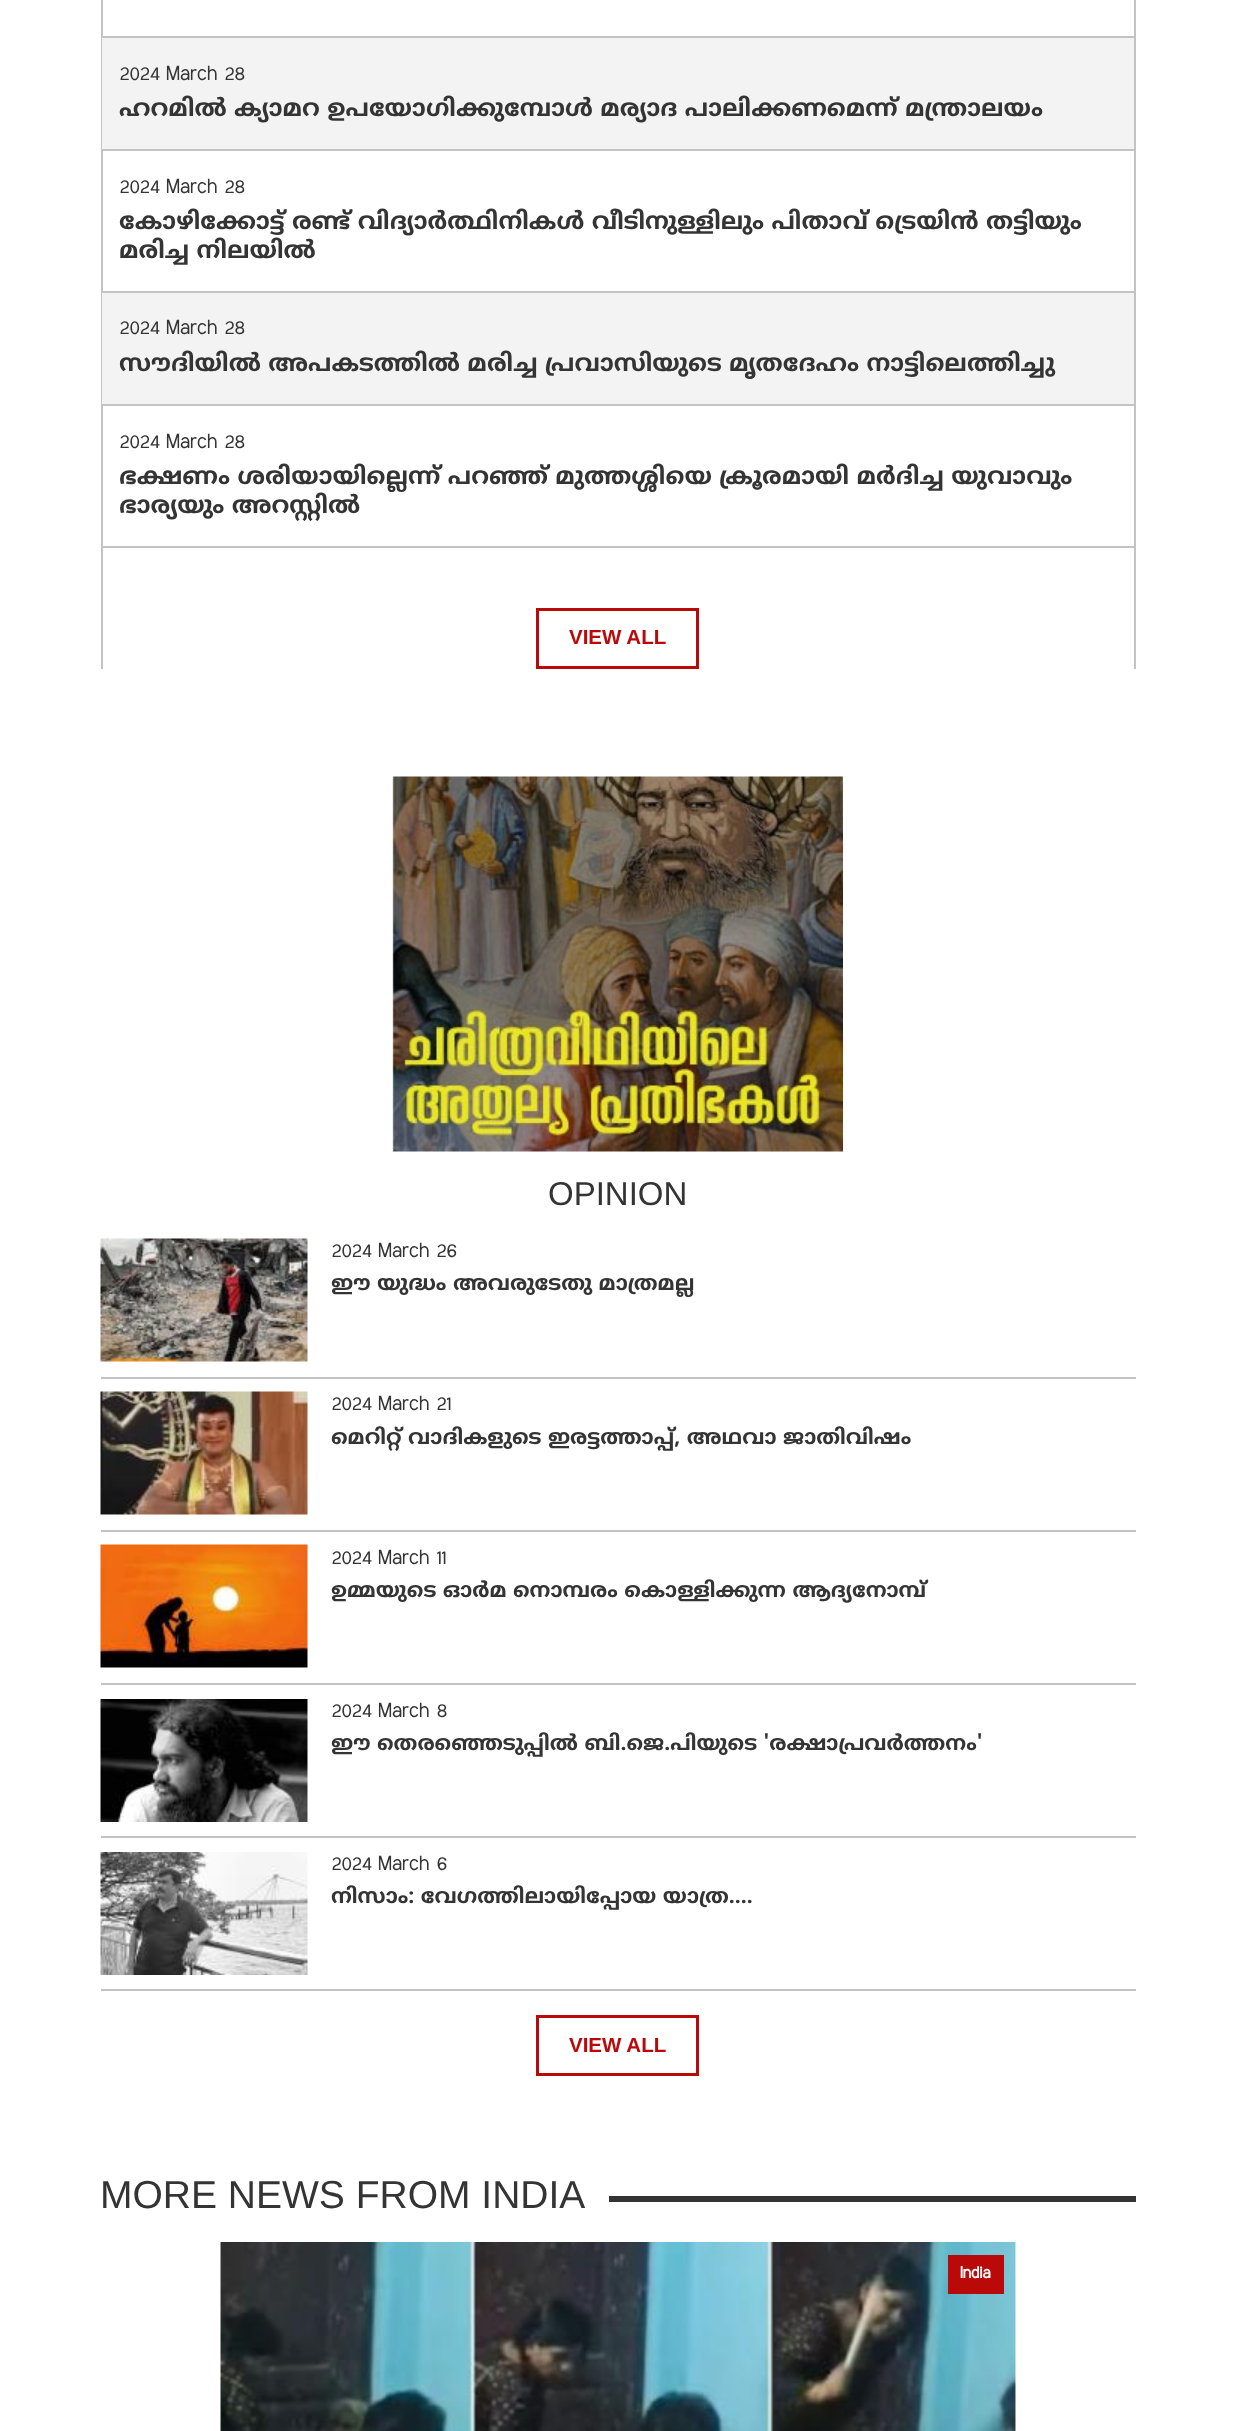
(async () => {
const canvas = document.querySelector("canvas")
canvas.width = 1234
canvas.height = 2431
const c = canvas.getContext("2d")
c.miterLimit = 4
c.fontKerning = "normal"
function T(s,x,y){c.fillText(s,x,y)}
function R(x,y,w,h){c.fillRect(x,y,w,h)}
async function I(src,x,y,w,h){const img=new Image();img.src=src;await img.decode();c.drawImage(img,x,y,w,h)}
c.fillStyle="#fff"
R(0,0,1234,2431)
c.fillStyle="#c3c3c3"
R(1134,0,2,669)
R(101,0,2,669)
R(102,36,1032,2)
c.fillStyle="#f3f3f3"
R(102,38,1032,111)
c.fillStyle="#c3c3c3"
R(102,149,1032,2)
c.font="24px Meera"
c.fillStyle="#343434"
T("2024 March 28",119,80)
c.font="bold 24px Noto Sans Malayalam"
T("ഹറമില്‍ ക്യാമറ ഉപയോഗിക്കുമ്പോള്‍ മര്യാദ പാലിക്കണമെന്ന് മന്ത്രാലയം",119,116)
c.fillStyle="#c3c3c3"
R(102,291,1032,2)
c.font="24px Meera"
c.fillStyle="#343434"
T("2024 March 28",119,193)
c.font="bold 24px Noto Sans Malayalam"
T("കോഴിക്കോട്ട് രണ്ട് വിദ്യാർത്ഥിനികൾ വീടിനുള്ളിലും പിതാവ് ട്രെയിൻ തട്ടിയും",119,229)
T("മരിച്ച നിലയിൽ",119,258)
c.fillStyle="#f3f3f3"
R(102,293,1032,111)
c.fillStyle="#c3c3c3"
R(102,404,1032,2)
c.font="24px Meera"
c.fillStyle="#343434"
T("2024 March 28",119,334)
c.font="bold 24px Noto Sans Malayalam"
T("സൗദിയില്‍ അപകടത്തില്‍ മരിച്ച പ്രവാസിയുടെ മൃതദേഹം നാട്ടിലെത്തിച്ചു",119,371)
c.fillStyle="#c3c3c3"
R(102,546,1032,2)
c.font="24px Meera"
c.fillStyle="#343434"
T("2024 March 28",119,448)
c.font="bold 24px Noto Sans Malayalam"
T("ഭക്ഷണം ശരിയായില്ലെന്ന് പറഞ്ഞ് മുത്തശ്ശിയെ ക്രൂരമായി മര്‍ദിച്ച യുവാവും",119,484)
T("ഭാര്യയും അറസ്റ്റില്‍",119,513)
c.strokeStyle="#ba0909"
c.lineWidth=3
c.strokeRect(537.5,609.5,160,58)
c.font="bold 20.5px Liberation Sans"
c.fillStyle="#ba0909"
T("VIEW ALL",569,644)
await I("1.png",392,776,451,376)
c.font="33px Liberation Sans"
c.fillStyle="#343434"
T("OPINION",548,1205)
c.fillStyle="#c3c3c3"
R(101,1377,1035,2)
await I("2.png",100,1238,208,124)
c.font="24px Meera"
c.fillStyle="#343434"
T("2024 March 26",331,1257)
c.font="bold 21px Noto Sans Malayalam"
T("ഈ യുദ്ധം അവരുടേതു മാത്രമല്ല",331,1290)
c.fillStyle="#c3c3c3"
R(101,1530,1035,2)
await I("3.png",100,1391,208,124)
c.font="24px Meera"
c.fillStyle="#343434"
T("2024 March 21",331,1410)
c.font="bold 21px Noto Sans Malayalam"
T("മെറിറ്റ് വാദികളുടെ ഇരട്ടത്താപ്പ്, അഥവാ ജാതിവിഷം",331,1444)
c.fillStyle="#c3c3c3"
R(101,1683,1035,2)
await I("4.png",100,1544,208,124)
c.font="24px Meera"
c.fillStyle="#343434"
T("2024 March 11",331,1564)
c.font="bold 21px Noto Sans Malayalam"
T("ഉമ്മയുടെ ഓർമ നൊമ്പരം കൊള്ളിക്കുന്ന ആദ്യനോമ്പ്",331,1597)
c.fillStyle="#c3c3c3"
R(101,1836,1035,2)
await I("5.png",100,1699,208,123)
c.font="24px Meera"
c.fillStyle="#343434"
T("2024 March 8",331,1717)
c.font="bold 21px Noto Sans Malayalam"
T("ഈ തെരഞ്ഞെടുപ്പില്‍ ബി.ജെ.പിയുടെ 'രക്ഷാപ്രവര്‍ത്തനം'",331,1750)
c.fillStyle="#c3c3c3"
R(101,1989,1035,2)
await I("6.png",100,1852,208,123)
c.font="24px Meera"
c.fillStyle="#343434"
T("2024 March 6",331,1870)
c.font="bold 21px Noto Sans Malayalam"
T("നിസാം: വേഗത്തിലായിപ്പോയ യാത്ര....",331,1903)
c.strokeRect(537.5,2016.5,160,58)
c.font="bold 20.5px Liberation Sans"
c.fillStyle="#ba0909"
T("VIEW ALL",569,2052)
c.font="39px Liberation Sans"
c.fillStyle="#343434"
T("MORE NEWS FROM INDIA",100,2208)
R(609,2196,527,6)
await I("7.png",220,2242,796,189)
c.fillStyle="#ba0909"
R(948,2255,56,39)
c.font="bold 19px Meera"
c.fillStyle="#fff"
T("India",960,2278)
})()
